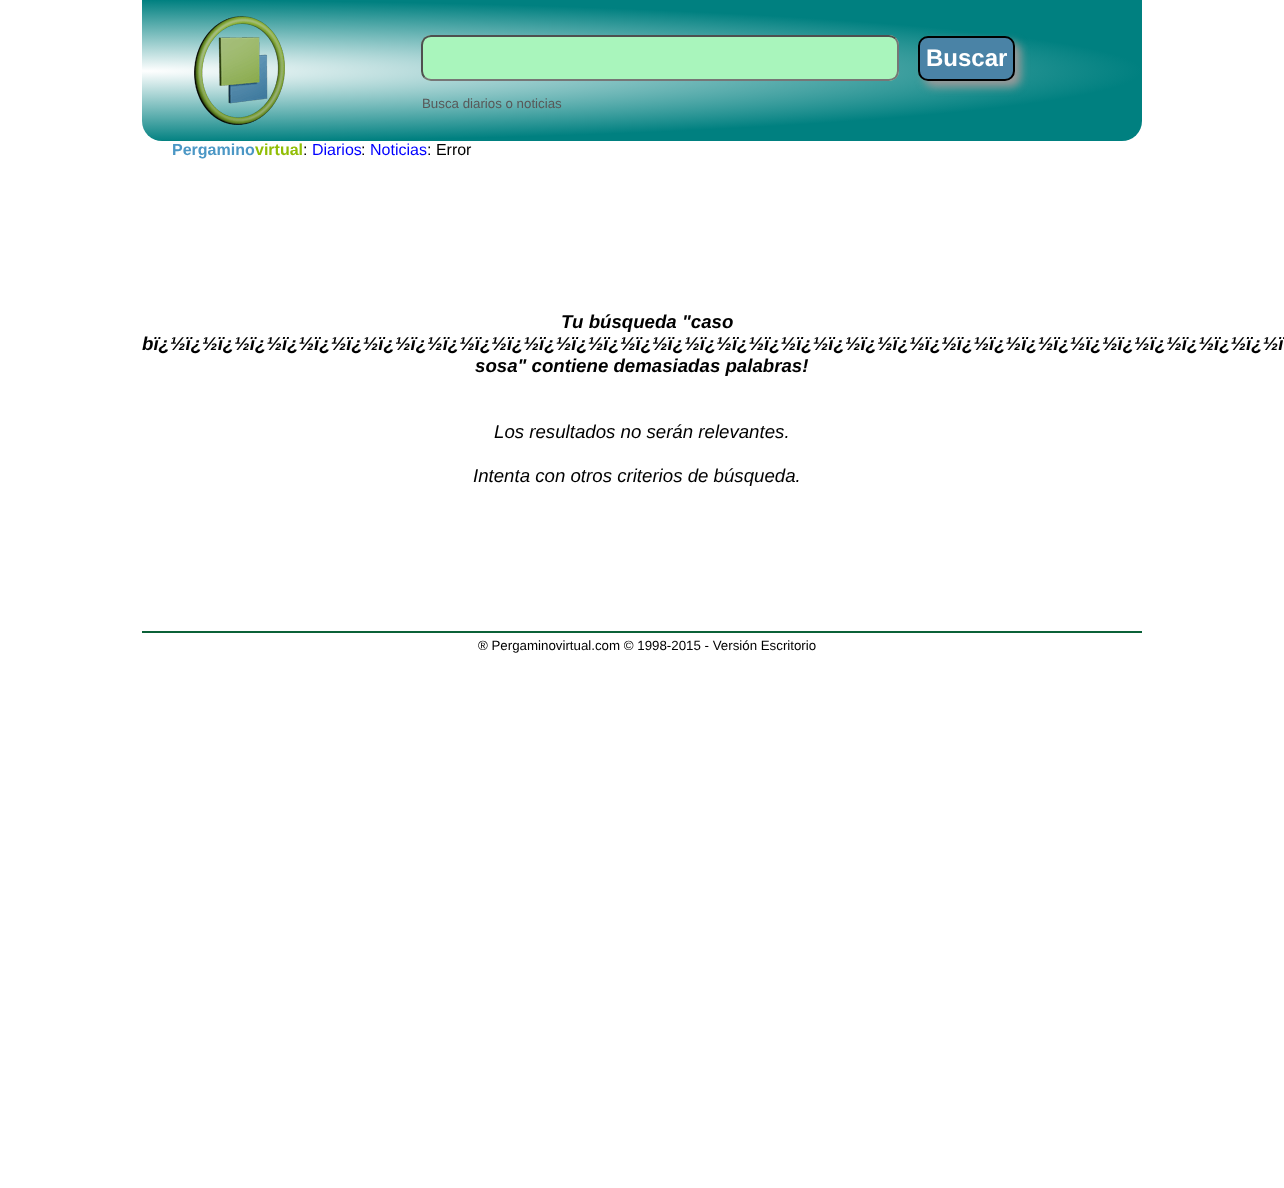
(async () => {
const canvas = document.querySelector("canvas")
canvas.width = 1284
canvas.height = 1188
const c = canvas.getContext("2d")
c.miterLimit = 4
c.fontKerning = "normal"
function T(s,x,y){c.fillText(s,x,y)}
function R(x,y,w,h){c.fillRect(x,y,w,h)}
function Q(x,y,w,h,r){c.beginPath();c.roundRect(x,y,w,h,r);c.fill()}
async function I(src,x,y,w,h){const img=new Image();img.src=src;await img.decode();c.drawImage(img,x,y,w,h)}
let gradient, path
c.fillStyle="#fff"
R(0,0,1284,1188)
gradient = c.createRadialGradient(142,1000,0,142,1000,1000)
gradient.addColorStop(0,"#fff")
gradient.addColorStop(1,"#008080")
c.fillStyle = gradient
c.beginPath()
c.roundRect(142,0,1000,141,[0,0,20,20])
c.save()
c.clip()
c.scale(1,71 / 1000)
c.fillRect(0,0,1284,16733)
c.restore()
await I("1.png",194,16,91,109)
c.fillStyle="#a9f5bc"
Q(421,35,478,46,10)
path = new Path2D("M895.5 38.5c1.5 2 2.5 4 2.5 6.5v26c0 2.5-1 4.5-2.5 6.5c-2 1.5-4 2.5-6.5 2.5h-458c-2.5 0-4.5-1-6.5-2.5")
c.strokeStyle="#767676"
c.lineWidth=2
c.stroke(path)
path = new Path2D("M424.5 77.5c-1.5-2-2.5-4-2.5-6.5v-26c0-2.5 1-4.5 2.5-6.5c2-1.5 4-2.5 6.5-2.5h458c2.5 0 4.5 1 6.5 2.5")
c.strokeStyle="#4f4f4f"
c.stroke(path)
c.fillStyle="#999"
c.filter="blur(4px)"
c.beginPath()
c.roundRect(924,42,97,45,10)
c.fill()
c.filter="none"
c.fillStyle="#4a83a6"
c.beginPath()
c.roundRect(919,37,95,43,9)
c.fill()
c.strokeStyle="#000"
c.stroke()
c.font="bold 24px Liberation Sans"
c.fillStyle="#fff"
T("Buscar",926,66)
c.font="13.3px Liberation Sans"
c.fillStyle="#585858"
T("Busca diarios o noticias",422,108)
c.font="bold 16px Liberation Sans"
c.fillStyle="#4b97c5"
T("Pergamino",172,155)
c.fillStyle="#91be05"
T("virtual",255,155)
c.font="16px Liberation Sans"
c.fillStyle="#000"
T(":",303,155)
c.fillStyle="#00f"
T("Diarios",312,155)
c.fillStyle="#000"
T(":",361,155)
c.fillStyle="#00f"
T("Noticias",370,155)
c.fillStyle="#000"
T(": Error",427,155)
c.font="italic bold 18.67px Liberation Sans"
T("Tu búsqueda \"caso",561,328)
T("bï¿½ï¿½ï¿½ï¿½ï¿½ï¿½ï¿½ï¿½ï¿½ï¿½ï¿½ï¿½ï¿½ï¿½ï¿½ï¿½ï¿½ï¿½ï¿½ï¿½ï¿½ï¿½ï¿½ï¿½ï¿½ï¿½ï¿½ï¿½ï¿½ï¿½ï¿½ï¿½ï¿½ï¿½ï¿½ï",142,350)
T("sosa\" contiene demasiadas palabras!",475,372)
c.font="italic 18.67px Liberation Sans"
T("Los resultados no serán relevantes.",494,438)
T("Intenta con otros criterios de búsqueda.",473,482)
c.fillStyle="#0b6138"
R(142,631,1000,2)
c.font="13.3px Liberation Sans"
c.fillStyle="#000"
T("® Pergaminovirtual.com © 1998-2015 - Versión Escritorio",478,650)
})()
